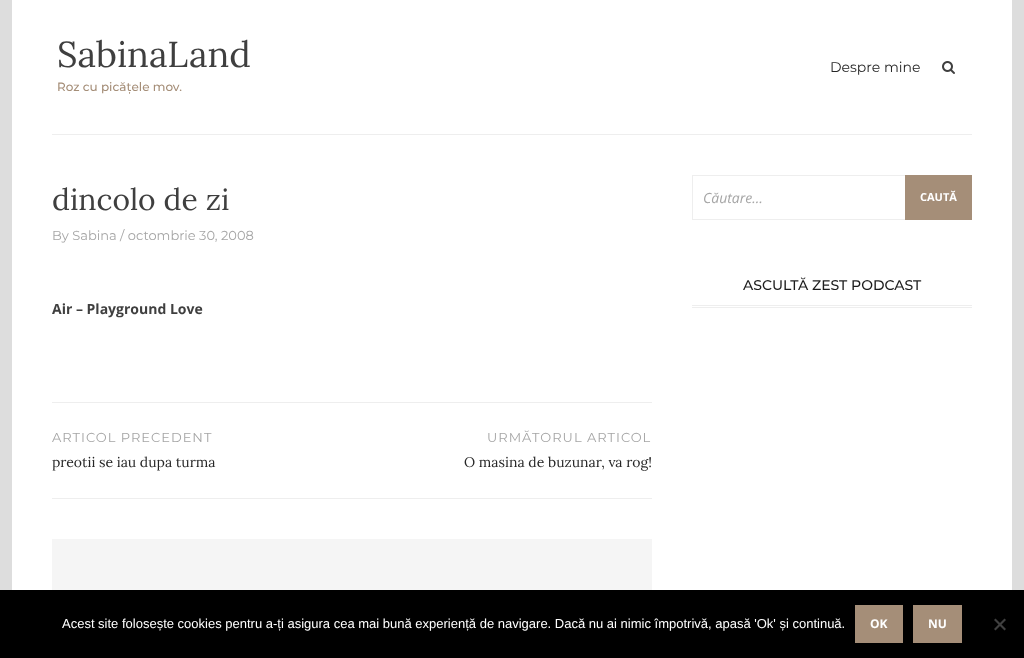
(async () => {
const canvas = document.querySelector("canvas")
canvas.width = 1024
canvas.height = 658
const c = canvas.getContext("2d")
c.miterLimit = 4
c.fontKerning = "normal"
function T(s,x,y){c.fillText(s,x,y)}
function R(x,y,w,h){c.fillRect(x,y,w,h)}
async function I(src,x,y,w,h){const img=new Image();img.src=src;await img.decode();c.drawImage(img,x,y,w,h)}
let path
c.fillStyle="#ddd"
R(0,0,1024,658)
c.fillStyle="#fff"
R(12,0,1000,590)
c.fillStyle="#eee"
R(52,134,920,1)
c.font="36px Lora"
c.fillStyle="#3f3f3f"
T("SabinaLand",57,67)
c.font="500 12px Montserrat"
c.fillStyle="#a58e78"
T("Roz cu picățele mov.",57,91)
c.font="14px Montserrat"
c.fillStyle="#262626"
T("Despre mine",830,72)
await I("1.png",942,61,13,13)
c.font="30px Lora"
c.fillStyle="#3f3f3f"
T("dincolo de zi",52,210)
c.font="13px Montserrat"
c.fillStyle="#a5a5a5"
T("By Sabina / octombrie 30, 2008",52,240)
c.font="bold 14px Open Sans"
c.fillStyle="#3f3f3f"
T("Air – Playground Love",52,314)
c.fillStyle="#eee"
R(52,402,600,1)
R(52,498,600,1)
c.letterSpacing="1px"
c.font="13px Montserrat"
c.fillStyle="#a5a5a5"
T("ARTICOL PRECEDENT",52,442)
c.letterSpacing="0px"
c.font="14px Lora"
c.fillStyle="#262626"
T("preotii se iau dupa turma",52,467)
c.letterSpacing="1px"
c.font="13px Montserrat"
c.fillStyle="#a5a5a5"
T("URMĂTORUL ARTICOL",487,442)
c.letterSpacing="0px"
c.font="14px Lora"
c.fillStyle="#262626"
T("O masina de buzunar, va rog!",464,467)
c.fillStyle="#f5f5f5"
R(52,539,600,51)
c.strokeStyle="#eee"
c.strokeRect(692.5,175.5,279,44)
c.font="italic 14px Open Sans"
c.fillStyle="#a5a5a5"
T("Căutare…",703,203)
c.fillStyle="#a58e78"
R(905,175,67,45)
c.font="bold 11px Open Sans"
c.fillStyle="#fff"
T("CAUTĂ",920,201)
c.fillStyle="#eee"
R(692,305,280,1)
R(692,307,280,1)
c.font="500 14px Montserrat"
c.fillStyle="#1d1d1d"
T("ASCULTĂ ZEST PODCAST",743,290)
c.fillStyle="#000"
R(0,590,1024,68)
c.font="13px Liberation Sans"
c.fillStyle="#fff"
T("Acest site folosește cookies pentru a-ți asigura cea mai bună experiență de navigare. Dacă nu ai nimic împotrivă, apasă 'Ok' și continuă.",62,628)
c.fillStyle="#a58e78"
R(855,605,48,38)
c.font="bold 12px Open Sans"
c.fillStyle="#fff"
T("OK",870,628)
c.fillStyle="#a58e78"
R(913,605,49,38)
c.fillStyle="#fff"
T("NU",928,628)
c.fillStyle="#404040"
path = new Path2D("M1004.5 618.5l1.5 1.5l-10.5 10.5l-1.5-1.5z")
c.fill(path)
path = new Path2D("M994 620l1.5-1.5l10.5 10.5l-1.5 1.5z")
c.fill(path)
})()
